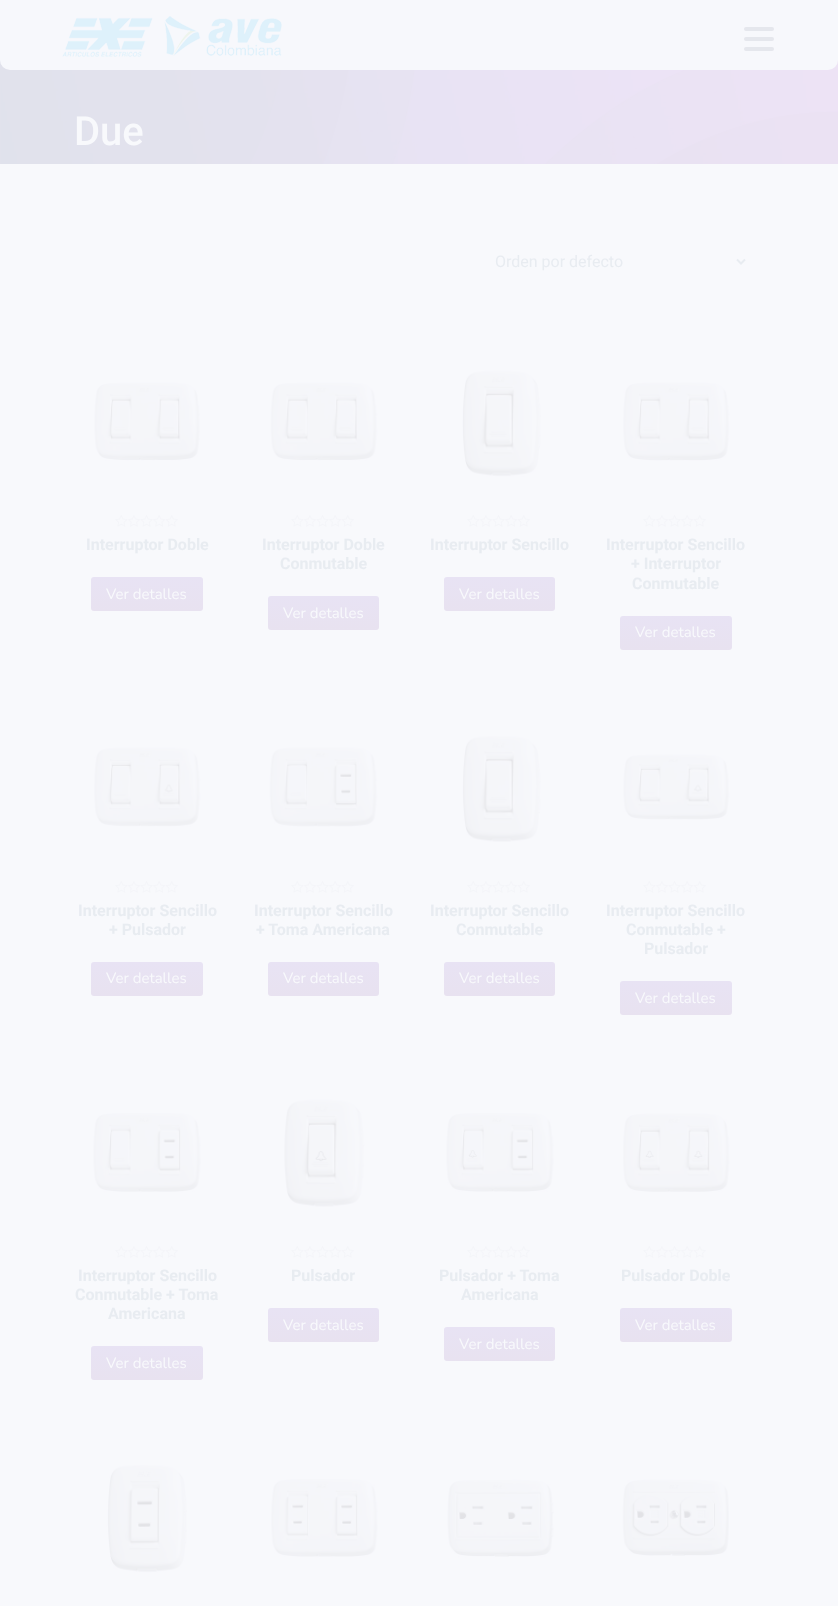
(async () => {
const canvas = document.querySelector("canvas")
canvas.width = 838
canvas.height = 1606
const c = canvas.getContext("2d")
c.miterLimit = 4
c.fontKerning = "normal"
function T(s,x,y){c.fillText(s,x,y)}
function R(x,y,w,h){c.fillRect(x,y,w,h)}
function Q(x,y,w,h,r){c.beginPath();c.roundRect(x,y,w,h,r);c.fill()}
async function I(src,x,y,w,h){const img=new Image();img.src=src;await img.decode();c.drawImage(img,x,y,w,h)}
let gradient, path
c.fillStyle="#fff"
R(0,0,838,1606)
await I("2.png",0,60,838,104)
c.fillStyle="#f7f8fc"
c.beginPath()
c.roundRect(0,0,838,70,[0,0,10,10])
c.fill()
await I("1.png",62,16,220,41)
c.fillStyle="#e5e7ed"
Q(744,37,30,4,2)
Q(744,27,30,4,2)
Q(744,47,30,4,2)
c.font="500 40px Roboto"
c.fillStyle="#f8f9fc"
T("Due",74,145)
R(0,164,838,1442)
path = new Path2D("M737 259.5l4 4l4-4")
c.strokeStyle="#e8ecf1"
c.lineWidth=2
c.stroke(path)
c.font="16px Roboto"
c.fillStyle="#e8ecf1"
T("Orden por defecto",495,267)
await I("3.png",94,382,106,79)
await I("4.png",115,515,63,12)
c.font="bold 16px Roboto"
T("Interruptor Doble",86,550)
gradient = c.createLinearGradient(147,577,147,611)
gradient.addColorStop(0,"#e8e3f4")
gradient.addColorStop(1,"#e8e2f0")
c.fillStyle = gradient
Q(91,577,112,34,3)
c.font="15px Nunito"
c.fillStyle="#f8f9fc"
T("Ver detalles",106,599)
await I("5.png",270,382,108,79)
await I("4.png",291,515,63,12)
c.font="bold 16px Roboto"
c.fillStyle="#e8ecf1"
T("Interruptor Doble",262,550)
T("Conmutable",280,569)
gradient = c.createLinearGradient(323,596,323,630)
gradient.addColorStop(0,"#e8e3f4")
gradient.addColorStop(1,"#e8e2f0")
c.fillStyle = gradient
Q(268,596,111,34,3)
c.font="15px Nunito"
c.fillStyle="#f8f9fc"
T("Ver detalles",283,618)
await I("6.png",462,370,79,107)
await I("4.png",467,515,63,12)
c.font="bold 16px Roboto"
c.fillStyle="#e8ecf1"
T("Interruptor Sencillo",430,550)
gradient = c.createLinearGradient(500,577,500,611)
gradient.addColorStop(0,"#e8e3f4")
gradient.addColorStop(1,"#e8e2f0")
c.fillStyle = gradient
Q(444,577,111,34,3)
c.font="15px Nunito"
c.fillStyle="#f8f9fc"
T("Ver detalles",459,599)
await I("7.png",623,382,107,79)
await I("4.png",643,515,63,12)
c.font="bold 16px Roboto"
c.fillStyle="#e8ecf1"
T("Interruptor Sencillo",606,550)
T("+ Interruptor",631,569)
T("Conmutable",632,589)
gradient = c.createLinearGradient(676,616,676,650)
gradient.addColorStop(0,"#e8e3f4")
gradient.addColorStop(1,"#e8e2f0")
c.fillStyle = gradient
Q(620,616,112,34,3)
c.font="15px Nunito"
c.fillStyle="#f8f9fc"
T("Ver detalles",635,637)
await I("8.png",94,747,107,80)
await I("4.png",115,881,63,12)
c.font="bold 16px Roboto"
c.fillStyle="#e8ecf1"
T("Interruptor Sencillo",78,916)
T("+ Pulsador",109,935)
gradient = c.createLinearGradient(147,962,147,996)
gradient.addColorStop(0,"#e8e3f4")
gradient.addColorStop(1,"#e8e2f0")
c.fillStyle = gradient
Q(91,962,112,34,3)
c.font="15px Nunito"
c.fillStyle="#f8f9fc"
T("Ver detalles",106,983)
await I("9.png",269,747,109,80)
await I("4.png",291,881,63,12)
c.font="bold 16px Roboto"
c.fillStyle="#e8ecf1"
T("Interruptor Sencillo",254,916)
T("+ Toma Americana",256,935)
gradient = c.createLinearGradient(323,962,323,996)
gradient.addColorStop(0,"#e8e3f4")
gradient.addColorStop(1,"#e8e2f0")
c.fillStyle = gradient
Q(268,962,111,34,3)
c.font="15px Nunito"
c.fillStyle="#f8f9fc"
T("Ver detalles",283,983)
await I("10.png",462,736,79,106)
await I("4.png",467,881,63,12)
c.font="bold 16px Roboto"
c.fillStyle="#e8ecf1"
T("Interruptor Sencillo",430,916)
T("Conmutable",456,935)
gradient = c.createLinearGradient(500,962,500,996)
gradient.addColorStop(0,"#e8e3f4")
gradient.addColorStop(1,"#e8e2f0")
c.fillStyle = gradient
Q(444,962,111,34,3)
c.font="15px Nunito"
c.fillStyle="#f8f9fc"
T("Ver detalles",459,983)
await I("11.png",623,754,107,66)
await I("4.png",643,881,63,12)
c.font="bold 16px Roboto"
c.fillStyle="#e8ecf1"
T("Interruptor Sencillo",606,916)
T("Conmutable +",626,935)
T("Pulsador",644,954)
gradient = c.createLinearGradient(676,981,676,1015)
gradient.addColorStop(0,"#e8e3f4")
gradient.addColorStop(1,"#e8e2f0")
c.fillStyle = gradient
Q(620,981,112,34,3)
c.font="15px Nunito"
c.fillStyle="#f8f9fc"
T("Ver detalles",635,1003)
await I("12.png",93,1113,108,80)
await I("4.png",115,1246,63,12)
c.font="bold 16px Roboto"
c.fillStyle="#e8ecf1"
T("Interruptor Sencillo",78,1281)
T("Conmutable + Toma",75,1300)
T("Americana",108,1319)
gradient = c.createLinearGradient(147,1346,147,1380)
gradient.addColorStop(0,"#e8e3f4")
gradient.addColorStop(1,"#e8e2f0")
c.fillStyle = gradient
Q(91,1346,112,34,3)
c.font="15px Nunito"
c.fillStyle="#f8f9fc"
T("Ver detalles",106,1368)
await I("13.png",284,1099,81,108)
await I("4.png",291,1246,63,12)
c.font="bold 16px Roboto"
c.fillStyle="#e8ecf1"
T("Pulsador",291,1281)
gradient = c.createLinearGradient(323,1308,323,1342)
gradient.addColorStop(0,"#e8e3f4")
gradient.addColorStop(1,"#e8e2f0")
c.fillStyle = gradient
Q(268,1308,111,34,3)
c.font="15px Nunito"
c.fillStyle="#f8f9fc"
T("Ver detalles",283,1330)
await I("14.png",446,1113,108,79)
await I("4.png",467,1246,63,12)
c.font="bold 16px Roboto"
c.fillStyle="#e8ecf1"
T("Pulsador + Toma",439,1281)
T("Americana",461,1300)
gradient = c.createLinearGradient(500,1327,500,1361)
gradient.addColorStop(0,"#e8e3f4")
gradient.addColorStop(1,"#e8e2f0")
c.fillStyle = gradient
Q(444,1327,111,34,3)
c.font="15px Nunito"
c.fillStyle="#f8f9fc"
T("Ver detalles",459,1349)
await I("15.png",623,1113,107,80)
await I("4.png",643,1246,63,12)
c.font="bold 16px Roboto"
c.fillStyle="#e8ecf1"
T("Pulsador Doble",621,1281)
gradient = c.createLinearGradient(676,1308,676,1342)
gradient.addColorStop(0,"#e8e3f4")
gradient.addColorStop(1,"#e8e2f0")
c.fillStyle = gradient
Q(620,1308,112,34,3)
c.font="15px Nunito"
c.fillStyle="#f8f9fc"
T("Ver detalles",635,1330)
await I("16.png",106,1465,81,108)
await I("17.png",271,1479,107,79)
await I("18.png",447,1479,107,79)
await I("19.png",622,1479,107,77)
})()
